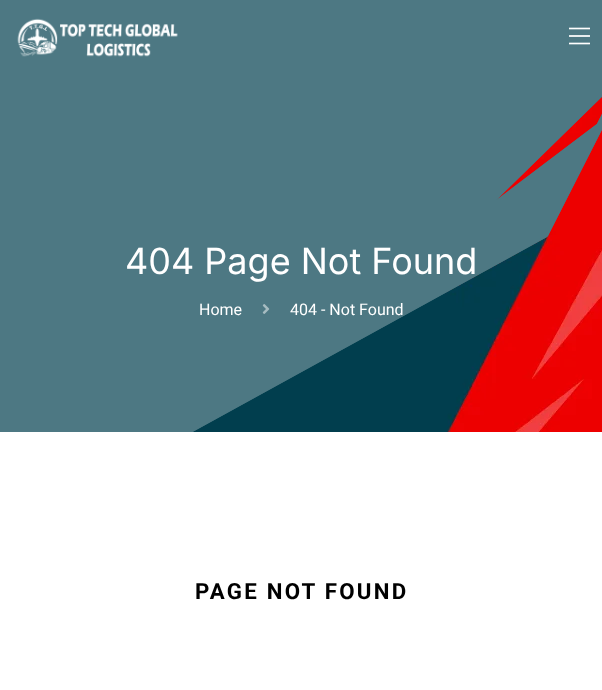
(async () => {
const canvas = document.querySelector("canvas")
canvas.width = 602
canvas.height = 690
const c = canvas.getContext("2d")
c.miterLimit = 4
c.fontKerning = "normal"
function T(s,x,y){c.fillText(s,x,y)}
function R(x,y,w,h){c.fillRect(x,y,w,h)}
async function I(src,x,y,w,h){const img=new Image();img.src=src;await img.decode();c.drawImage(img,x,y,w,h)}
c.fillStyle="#fff"
R(0,0,602,690)
c.fillStyle="#4d7883"
R(0,0,602,432)
await I("1.png",17,18,161,39)
await I("2.png",569,27,21,18)
await I("3.png",193,97,409,335)
c.font="36px Inter"
c.fillStyle="#fff"
T("404 Page Not Found",125,274)
c.font="16px Roboto"
T("Home",199,315)
await I("4.png",262,304,8,10)
T("404 - Not Found",290,315)
c.letterSpacing="2.25px"
c.font="bold 22.25px Roboto"
c.fillStyle="#000"
T("PAGE NOT FOUND",195,599)
})()
